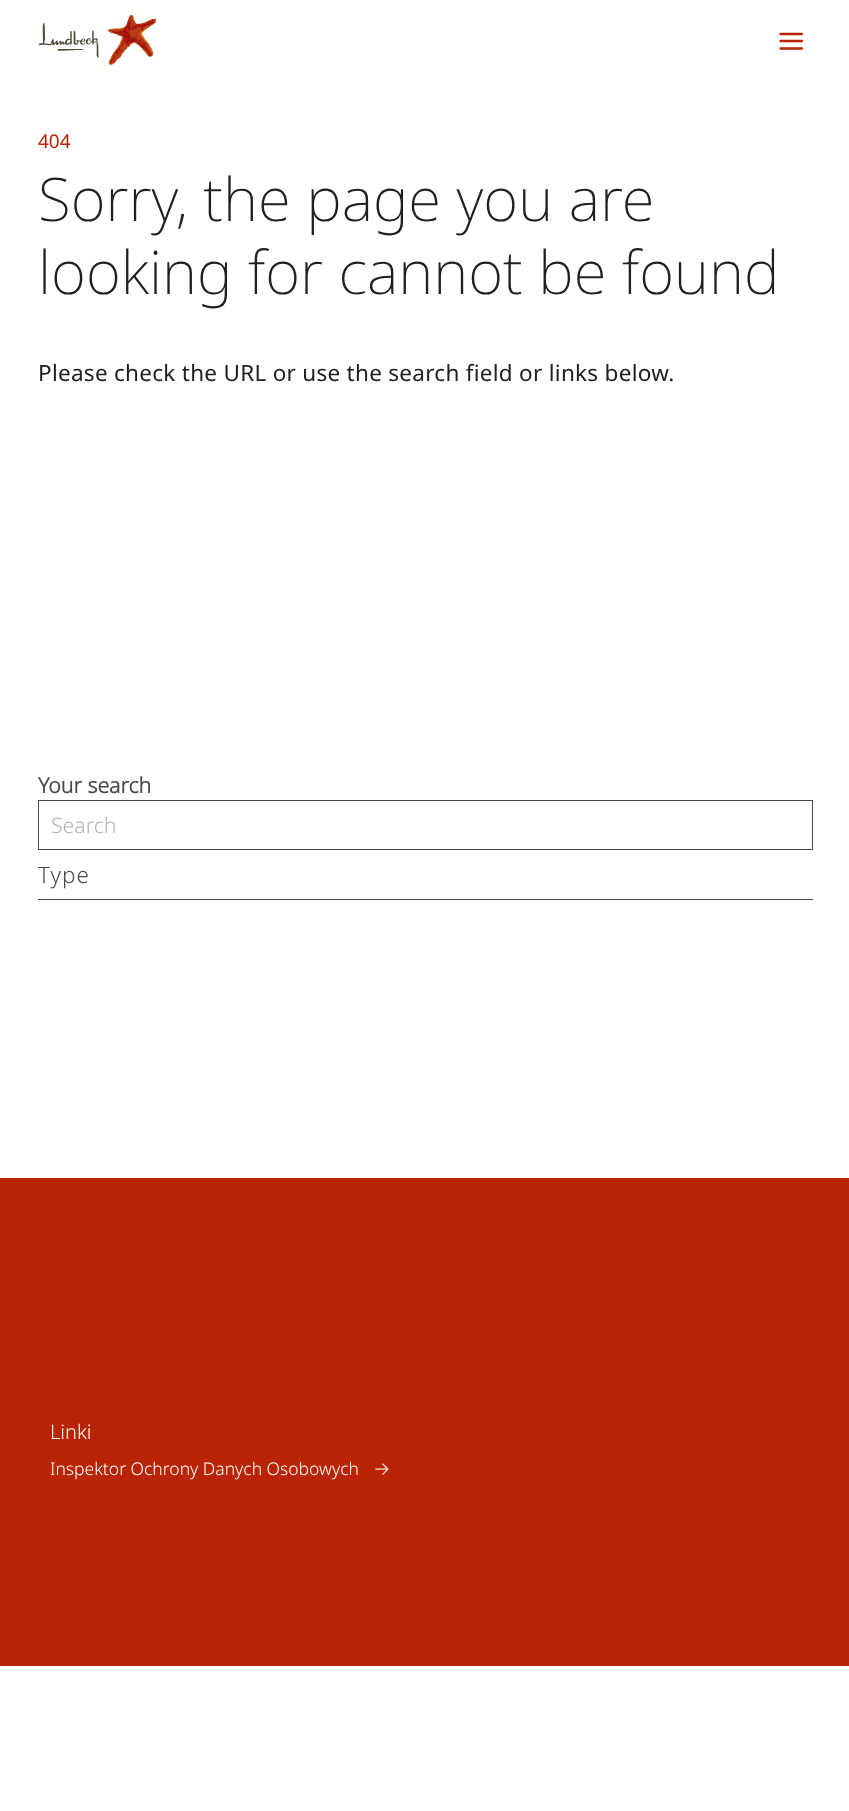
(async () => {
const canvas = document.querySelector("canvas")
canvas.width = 849
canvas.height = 1811
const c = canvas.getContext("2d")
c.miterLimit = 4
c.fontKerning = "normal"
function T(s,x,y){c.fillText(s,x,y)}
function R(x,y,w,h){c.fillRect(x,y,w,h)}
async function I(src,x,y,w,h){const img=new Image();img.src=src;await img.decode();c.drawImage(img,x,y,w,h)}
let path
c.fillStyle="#fff"
R(0,0,849,1811)
await I("1.png",38,15,118,50)
path = new Path2D("M780.5 48.5h21.5m-21.5-7.5h21.5m-21.5-7h21.5")
c.strokeStyle="#b92504"
c.lineWidth=2.3
c.lineCap="round"
c.lineJoin="round"
c.stroke(path)
c.font="19px Noto Sans"
c.fillStyle="#b92504"
T("404",38,148)
c.font="200 60px Noto Sans"
c.fillStyle="#22201f"
T("Sorry, the page you are",38,221)
T("looking for cannot be found",38,294)
c.letterSpacing="0.28px"
c.font="22.5px Noto Sans"
T("Please check the URL or use the search field or links below.",38,381)
c.letterSpacing="0px"
c.font="bold 21.25px Noto Sans"
c.fillStyle="#4a4a4a"
T("Your search",38,793)
c.strokeStyle="#4a4a4a"
c.lineWidth=1
c.lineJoin="miter"
c.strokeRect(38.5,800.5,774,49)
c.font="300 21.25px Noto Sans"
c.fillStyle="#b2b2b2"
T("Search",51,833)
c.fillStyle="#4a4a4a"
R(38,899,775,1)
c.letterSpacing="1px"
c.font="300 22.5px Noto Sans"
T("Type",38,883)
c.fillStyle="#b92504"
R(0,1178,849,488)
c.letterSpacing="0px"
c.font="300 20px Noto Sans"
c.fillStyle="#fff"
T("Linki",50,1439)
c.font="300 17.5px Noto Sans"
T("Inspektor Ochrony Danych Osobowych",50,1475)
await I("2.png",374,1463,15,12)
})()
